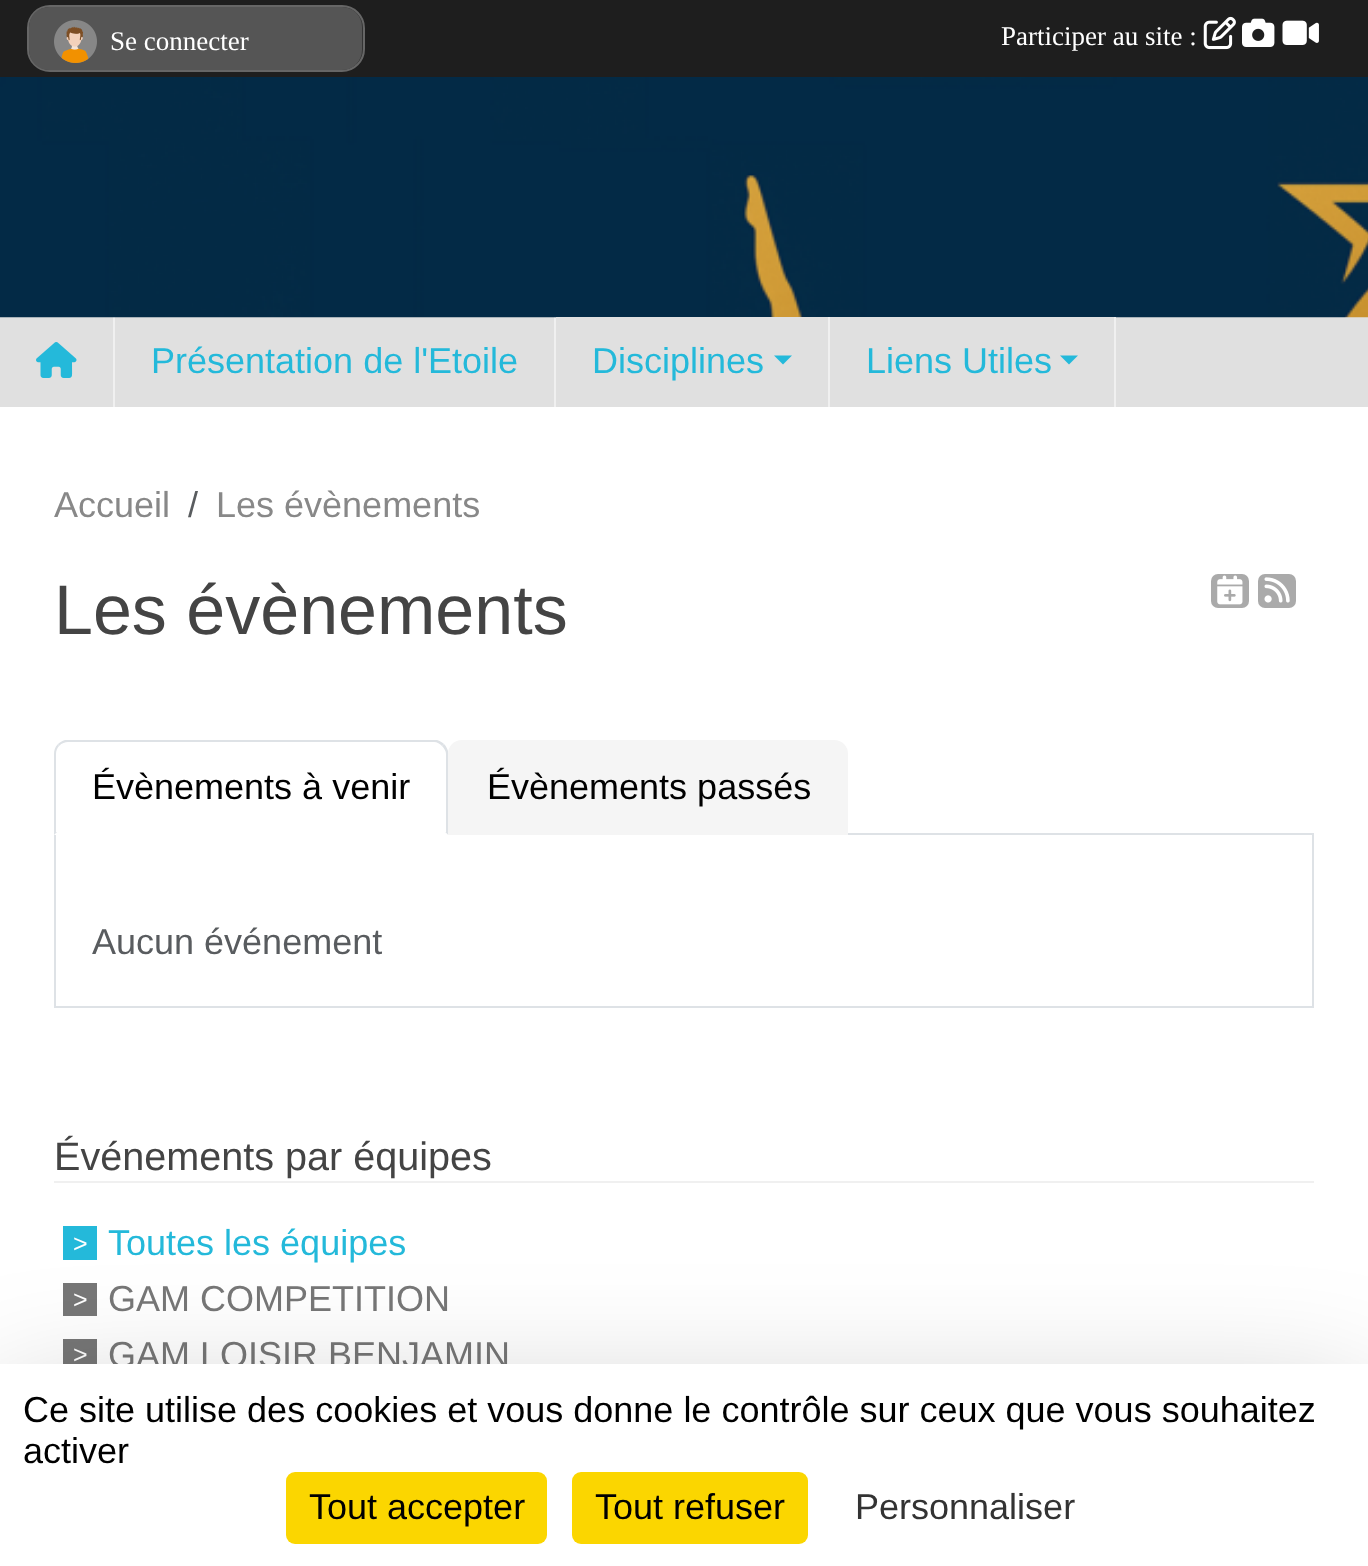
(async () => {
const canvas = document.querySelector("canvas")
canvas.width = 1368
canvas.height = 1566
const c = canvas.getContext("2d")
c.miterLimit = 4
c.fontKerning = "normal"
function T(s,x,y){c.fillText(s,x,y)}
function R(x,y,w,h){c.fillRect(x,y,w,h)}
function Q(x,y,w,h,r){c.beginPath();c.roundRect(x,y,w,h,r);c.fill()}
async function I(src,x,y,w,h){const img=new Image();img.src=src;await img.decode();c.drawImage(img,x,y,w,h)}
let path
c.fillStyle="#e0e0e0"
R(0,0,1368,1566)
c.fillStyle="#1e1e1e"
R(0,0,1368,77)
c.fillStyle="#333"
c.beginPath()
c.roundRect(28,6,336,65,22)
c.fill()
c.strokeStyle="#666"
c.lineWidth=2
c.stroke()
c.fillStyle="#555"
Q(29,7,333,63,20)
await I("1.png",54,20,43,43)
c.font="27px Liberation Serif"
c.fillStyle="#fff"
T("Se connecter",110,50)
T("Participer au site :",1001,45)
await I("2.png",1203,16,33,34)
await I("3.png",1242,18,33,29)
await I("4.png",1282,20,37,25)
c.fillStyle="#f0f0f0"
R(113,317,2,90)
R(554,317,2,90)
await I("5.png",0,77,1368,241)
await I("6.png",36,342,41,36)
c.font="36px Liberation Sans"
c.fillStyle="#24b9da"
T("Présentation de l'Etoile",151,373)
c.fillStyle="#e0e0e0"
R(556,317,272,1)
c.fillStyle="#f0f0f0"
R(828,317,2,90)
c.fillStyle="#24b9da"
T("Disciplines",592,373)
path = new Path2D("M774 355.5h18l-9 9z")
c.fill(path)
c.fillStyle="#e0e0e0"
R(830,317,284,1)
c.fillStyle="#f0f0f0"
R(1114,317,2,90)
c.fillStyle="#24b9da"
T("Liens Utiles",866,373)
path = new Path2D("M1060 355.5h18l-9 9z")
c.fill(path)
c.fillStyle="#fff"
R(0,407,1368,957)
c.fillStyle="#888"
T("Accueil",54,517)
c.fillStyle="#595c5f"
T("/",188,517)
c.fillStyle="#888"
T("Les évènements",216,517)
c.font="70px Liberation Sans"
c.fillStyle="#444"
T("Les évènements",54,634)
c.fillStyle="#aaa"
Q(1211,574,38,34,7)
await I("7.png",1217,575,26,30)
Q(1258,574,38,34,7)
await I("8.png",1264,577,26,26)
c.fillStyle="#dee2e6"
R(848,833,466,2)
path = new Path2D("M68 742c-3 0-6 1-9 4l-1-2c2-2 4-3 7-4h372c3 1 5 2 7 4l-2 2c-2-2-5-4-8-4z")
c.fill(path)
path = new Path2D("M444 744c2 2 3 4 4 7v84l-3-3h1v-78c0-3-2-6-4-8z")
c.fill(path)
c.fillStyle="#fff"
path = new Path2D("M448 835l-3-3h-388l-3 3z")
c.fill(path)
c.fillStyle="#dee2e6"
path = new Path2D("M54 835l3-3h-1v-78c0-3 1-6 3-8l-1-2c-3 3-4 6-4 10z")
c.fill(path)
c.font="36px Liberation Sans"
c.fillStyle="#000"
T("Évènements à venir",92,799)
c.fillStyle="#f5f5f5"
c.beginPath()
c.roundRect(448,740,400,95,[14,14,0,0])
c.fill()
c.fillStyle="#000"
T("Évènements passés",487,799)
c.fillStyle="#dee2e6"
R(1312,835,2,173)
R(54,1006,1260,2)
R(54,835,2,173)
c.fillStyle="#595c5f"
T("Aucun événement",92,954)
c.fillStyle="#f0f0f0"
R(54,1181,1260,2)
c.font="39.6px Liberation Sans"
c.fillStyle="#444"
T("Événements par équipes",54,1170)
c.fillStyle="#24b9da"
R(63,1226,34,34)
c.font="25px Liberation Sans"
c.fillStyle="#fff"
T(">",73,1252)
c.font="36px Liberation Sans"
c.fillStyle="#24b9da"
T("Toutes les équipes",108,1255)
c.fillStyle="#777"
R(63,1283,34,33)
c.font="25px Liberation Sans"
c.fillStyle="#fff"
T(">",73,1308)
c.font="36px Liberation Sans"
c.fillStyle="#777"
T("GAM COMPETITION",108,1311)
R(63,1339,34,25)
c.font="25px Liberation Sans"
c.fillStyle="#fff"
T(">",73,1363)
c.font="36px Liberation Sans"
c.fillStyle="#777"
T("GAM LOISIR BENJAMIN",108,1367)
c.fillStyle="#00000040"
c.filter="blur(67.5px)"
c.beginPath()
c.rect(0,1409,1368,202)
c.fill()
c.filter="none"
c.fillStyle="#fff"
R(0,1364,1368,202)
c.fillStyle="#000"
T("Ce site utilise des cookies et vous donne le contrôle sur ceux que vous souhaitez",23,1422)
T("activer",23,1463)
c.fillStyle="#fbd600"
Q(286,1472,261,72,9)
c.fillStyle="#000"
T("Tout accepter",309,1519)
c.fillStyle="#fbd600"
Q(572,1472,236,72,9)
c.fillStyle="#000"
T("Tout refuser",595,1519)
c.fillStyle="#333"
T("Personnaliser",855,1519)
})()
